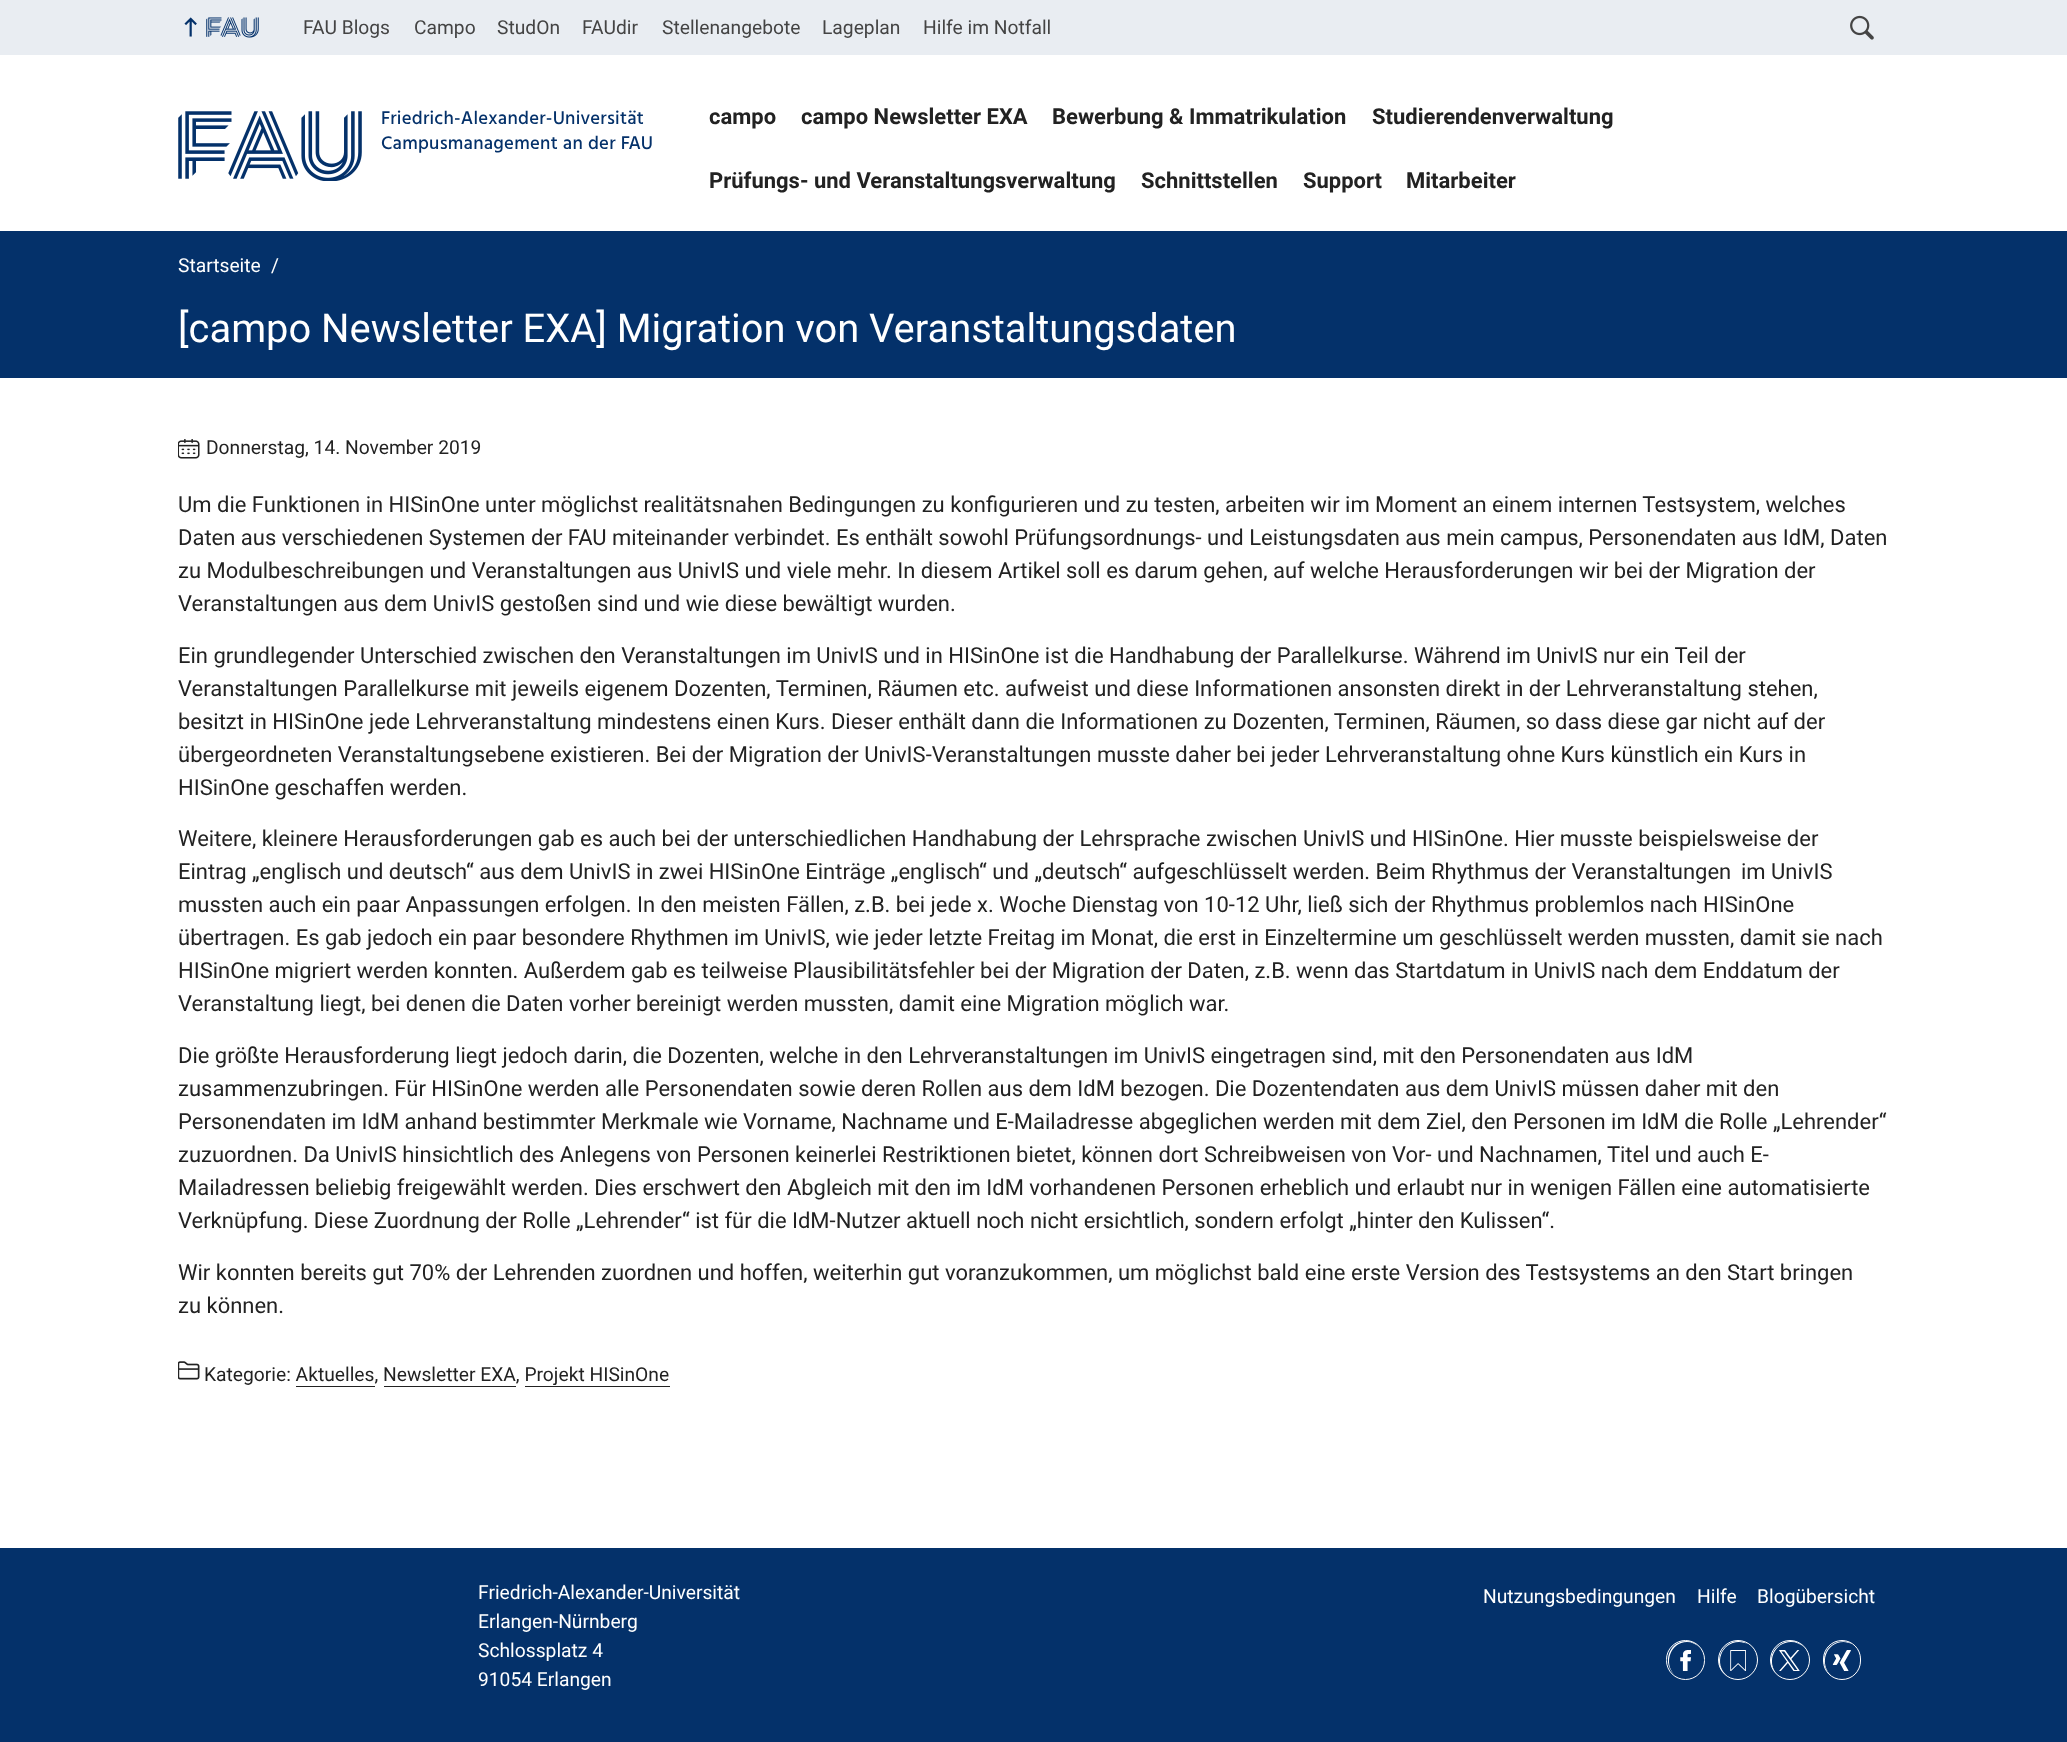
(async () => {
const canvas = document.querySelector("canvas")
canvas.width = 2067
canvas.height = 1742
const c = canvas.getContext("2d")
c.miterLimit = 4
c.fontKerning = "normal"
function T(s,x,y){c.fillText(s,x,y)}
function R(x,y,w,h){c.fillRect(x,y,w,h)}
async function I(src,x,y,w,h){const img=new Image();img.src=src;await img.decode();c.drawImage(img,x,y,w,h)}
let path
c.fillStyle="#fff"
R(0,0,2067,1742)
c.fillStyle="#e9edf2"
R(0,0,2067,55)
await I("1.png",184,17,13,20)
await I("2.png",206,17,53,21)
c.font="19.25px Roboto"
c.fillStyle="#444"
T("FAU Blogs",303,34)
T("Campo",414,34)
T("StudOn",497,34)
T("FAUdir",582,34)
T("Stellenangebote",662,34)
T("Lageplan",822,34)
T("Hilfe im Notfall",923,34)
await I("3.png",1850,15,24,25)
await I("4.png",178,111,184,70)
c.letterSpacing="0.25px"
c.font="500 18.75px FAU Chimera"
c.fillStyle="#04316a"
T("Friedrich-Alexander-Universität",381,124)
T("Campusmanagement an der FAU",381,149)
c.letterSpacing="0px"
c.font="bold 22px Roboto"
c.fillStyle="#222"
T("campo",709,124)
T("campo Newsletter EXA",801,124)
T("Bewerbung & Immatrikulation",1052,124)
T("Studierendenverwaltung",1372,124)
T("Prüfungs- und Veranstaltungsverwaltung",709,188)
T("Schnittstellen",1141,188)
T("Support",1303,188)
T("Mitarbeiter",1406,188)
c.fillStyle="#04316a"
R(0,231,2067,147)
c.font="19.25px Roboto"
c.fillStyle="#fff"
T("Startseite",178,272)
T("/",271,272)
c.font="39.9px Roboto"
T("[campo Newsletter EXA] Migration von Veranstaltungsdaten",178,342)
await I("5.png",178,439,22,20)
c.font="19.25px Roboto"
c.fillStyle="#222"
T("Donnerstag, 14. November 2019",206,454)
c.font="22px Roboto"
T("Um die Funktionen in HISinOne unter möglichst realitätsnahen Bedingungen zu konfigurieren und zu testen, arbeiten wir im Moment an einem internen Testsystem, welches",178,512)
T("Daten aus verschiedenen Systemen der FAU miteinander verbindet. Es enthält sowohl Prüfungsordnungs- und Leistungsdaten aus mein campus, Personendaten aus IdM, Daten",178,545)
T("zu Modulbeschreibungen und Veranstaltungen aus UnivIS und viele mehr. In diesem Artikel soll es darum gehen, auf welche Herausforderungen wir bei der Migration der",178,578)
T("Veranstaltungen aus dem UnivIS gestoßen sind und wie diese bewältigt wurden.",178,611)
T("Ein grundlegender Unterschied zwischen den Veranstaltungen im UnivIS und in HISinOne ist die Handhabung der Parallelkurse. Während im UnivIS nur ein Teil der",178,663)
T("Veranstaltungen Parallelkurse mit jeweils eigenem Dozenten, Terminen, Räumen etc. aufweist und diese Informationen ansonsten direkt in der Lehrveranstaltung stehen,",178,696)
T("besitzt in HISinOne jede Lehrveranstaltung mindestens einen Kurs. Dieser enthält dann die Informationen zu Dozenten, Terminen, Räumen, so dass diese gar nicht auf der",178,729)
T("übergeordneten Veranstaltungsebene existieren. Bei der Migration der UnivIS-Veranstaltungen musste daher bei jeder Lehrveranstaltung ohne Kurs künstlich ein Kurs in",178,762)
T("HISinOne geschaffen werden.",178,795)
T("Weitere, kleinere Herausforderungen gab es auch bei der unterschiedlichen Handhabung der Lehrsprache zwischen UnivIS und HISinOne. Hier musste beispielsweise der",178,846)
T("Eintrag „englisch und deutsch“ aus dem UnivIS in zwei HISinOne Einträge „englisch“ und „deutsch“ aufgeschlüsselt werden. Beim Rhythmus der Veranstaltungen",178,879)
T("im UnivIS",1741,879)
T("mussten auch ein paar Anpassungen erfolgen. In den meisten Fällen, z.B. bei jede x. Woche Dienstag von 10-12 Uhr, ließ sich der Rhythmus problemlos nach HISinOne",178,912)
T("übertragen. Es gab jedoch ein paar besondere Rhythmen im UnivIS, wie jeder letzte Freitag im Monat, die erst in Einzeltermine um geschlüsselt werden mussten, damit sie nach",178,945)
T("HISinOne migriert werden konnten. Außerdem gab es teilweise Plausibilitätsfehler bei der Migration der Daten, z.B. wenn das Startdatum in UnivIS nach dem Enddatum der",178,978)
T("Veranstaltung liegt, bei denen die Daten vorher bereinigt werden mussten, damit eine Migration möglich war.",178,1011)
T("Die größte Herausforderung liegt jedoch darin, die Dozenten, welche in den Lehrveranstaltungen im UnivIS eingetragen sind, mit den Personendaten aus IdM",178,1063)
T("zusammenzubringen. Für HISinOne werden alle Personendaten sowie deren Rollen aus dem IdM bezogen. Die Dozentendaten aus dem UnivIS müssen daher mit den",178,1096)
T("Personendaten im IdM anhand bestimmter Merkmale wie Vorname, Nachname und E-Mailadresse abgeglichen werden mit dem Ziel, den Personen im IdM die Rolle „Lehrender“",178,1129)
T("zuzuordnen. Da UnivIS hinsichtlich des Anlegens von Personen keinerlei Restriktionen bietet, können dort Schreibweisen von Vor- und Nachnamen, Titel und auch E-",178,1162)
T("Mailadressen beliebig freigewählt werden. Dies erschwert den Abgleich mit den im IdM vorhandenen Personen erheblich und erlaubt nur in wenigen Fällen eine automatisierte",178,1195)
T("Verknüpfung. Diese Zuordnung der Rolle „Lehrender“ ist für die IdM-Nutzer aktuell noch nicht ersichtlich, sondern erfolgt „hinter den Kulissen“.",178,1228)
T("Wir konnten bereits gut 70% der Lehrenden zuordnen und hoffen, weiterhin gut voranzukommen, um möglichst bald eine erste Version des Testsystems an den Start bringen",178,1280)
T("zu können.",178,1313)
await I("6.png",178,1361,22,19)
c.font="19.25px Roboto"
T("Kategorie: Aktuelles, Newsletter EXA, Projekt HISinOne",204,1381)
R(296,1386,79,1)
R(384,1386,132,1)
R(525,1386,145,1)
c.fillStyle="#04316a"
R(0,1548,2067,194)
c.fillStyle="#fff"
T("Friedrich-Alexander-Universität",478,1599)
T("Erlangen-Nürnberg",478,1628)
T("Schlossplatz 4",478,1657)
T("91054 Erlangen",478,1686)
T("Nutzungsbedingungen",1483,1603)
T("Hilfe",1697,1603)
T("Blogübersicht",1757,1603)
c.beginPath()
c.roundRect(1666.5,1640.5,38,39,19)
c.strokeStyle="#fff"
c.stroke()
await I("7.png",1680,1650,11,21)
path = new Path2D("M1687 1642c4.5 0 9 2 12 5c-8-9-21.5-7.5-28 2.5c-5 7.5-4 18.5 3 24.5c-10.5-11-3.5-32 13-32z")
c.fill(path)
c.beginPath()
c.arc(1738,1660,19.5,0,7)
c.stroke()
await I("8.png",1730,1650,16,21)
path = new Path2D("M1739 1642c-18 0-25.5 22.5-12 33.5c-20-13.5 1.5-44.5 21-31.5c-2.5-1-6-2-9-2z")
c.fill(path)
c.beginPath()
c.arc(1790,1660,19.5,0,7)
c.stroke()
await I("9.png",1779,1650,21,21)
path = new Path2D("M1791 1642c-16.5 0-25 20-14 32c-18.5-17.5 9.5-45.5 27-27c-3.5-3-8-5-13-5z")
c.fill(path)
c.beginPath()
c.roundRect(1823.5,1640.5,37,39,18.5)
c.stroke()
await I("10.png",1832,1650,19,21)
path = new Path2D("M1843.5 1642c3 0 6 1 8.5 2c-8-5.5-19-2.5-25 6c-5.5 8-3.5 20 5 26c-13.5-11-6.5-34 11.5-34z")
c.fill(path)
})()
